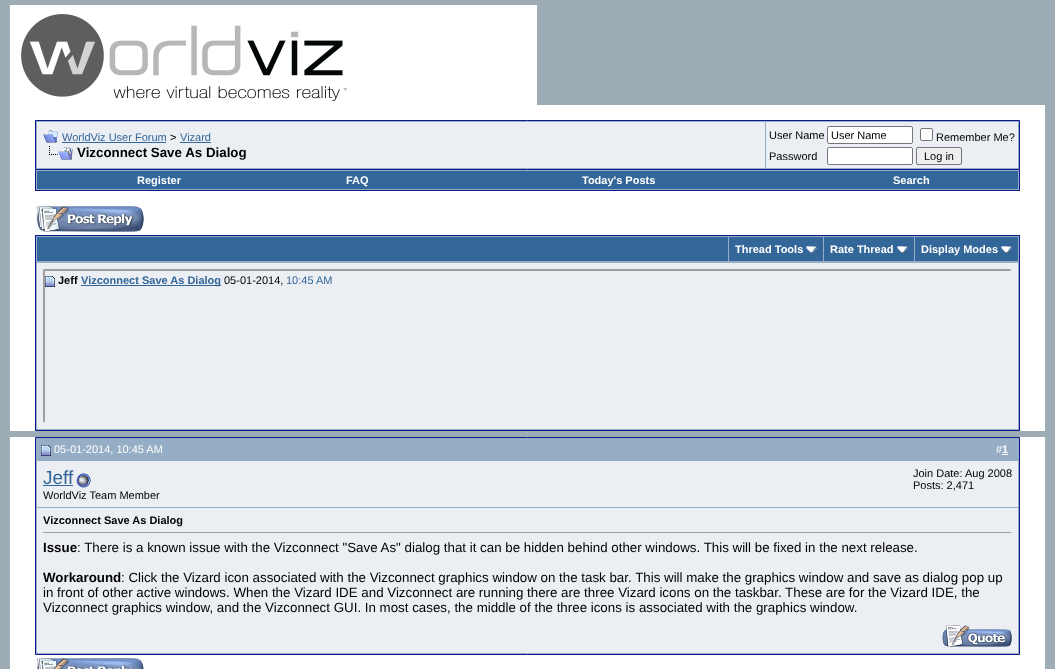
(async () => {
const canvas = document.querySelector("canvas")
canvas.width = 1055
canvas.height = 669
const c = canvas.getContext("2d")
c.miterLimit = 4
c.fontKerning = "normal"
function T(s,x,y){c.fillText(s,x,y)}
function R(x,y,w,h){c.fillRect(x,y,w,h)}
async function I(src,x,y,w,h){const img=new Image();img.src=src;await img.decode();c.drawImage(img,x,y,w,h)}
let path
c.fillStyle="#9eacb5"
R(0,0,1055,669)
await I("1.png",10,5,527,100)
c.fillStyle="#fff"
R(10,105,1035,326)
c.fillStyle="#95adc5"
c.beginPath()
c.rect(35.5,120.5,984,49)
c.fill()
c.strokeStyle="#0b198c"
c.stroke()
c.fillStyle="#ebeef3"
R(37,122,728,46)
await I("2.png",43,130,15,13)
c.font="11px Liberation Sans"
c.fillStyle="#369"
T("WorldViz User Forum",62,141)
R(62,142,104,1)
c.fillStyle="#000"
T(">",170,141)
c.fillStyle="#369"
T("Vizard",180,141)
R(180,142,31,1)
await I("3.png",49,146,24,14)
c.font="bold 13.33px Liberation Sans"
c.fillStyle="#000"
T("Vizconnect Save As Dialog",77,157)
c.fillStyle="#ebeef3"
R(766,122,252,46)
c.font="11px Liberation Sans"
c.fillStyle="#000"
T("User Name",769,139)
c.fillStyle="#fff"
c.beginPath()
c.roundRect(827.5,126.5,85,17,1.5)
c.fill()
c.strokeStyle="#767676"
c.stroke()
c.fillStyle="#000"
T("User Name",831,139)
c.fillStyle="#fff"
c.beginPath()
c.roundRect(920.5,128.5,12,12,1.5)
c.fill()
c.stroke()
c.fillStyle="#000"
T("Remember Me?",936,141)
T("Password",769,160)
c.fillStyle="#fff"
c.beginPath()
c.roundRect(827.5,147.5,85,17,1.5)
c.fill()
c.stroke()
c.fillStyle="#efefef"
c.beginPath()
c.roundRect(916.5,147.5,45,17,1.5)
c.fill()
c.stroke()
c.fillStyle="#000"
T("Log in",924,160)
c.fillStyle="#95adc5"
R(36,170,983,20)
c.fillStyle="#0b198c"
R(1019,170,1,21)
R(35,190,985,1)
R(35,170,1,21)
c.fillStyle="#369"
R(37,171,981,18)
c.font="bold 11px Liberation Sans"
c.fillStyle="#fff"
T("Register",137,184)
T("FAQ",346,184)
T("Today's Posts",582,184)
T("Search",893,184)
await I("4.png",36,206,108,26)
c.fillStyle="#95adc5"
R(36,236,983,194)
c.fillStyle="#0b198c"
R(35,235,985,1)
R(1019,235,1,196)
R(35,235,1,27)
c.fillStyle="#369"
R(37,237,691,24)
R(729,237,94,24)
c.fillStyle="#fff"
T("Thread Tools",735,253)
await I("5.png",806,246,11,7)
c.fillStyle="#369"
R(824,237,90,24)
c.fillStyle="#fff"
T("Rate Thread",830,253)
await I("5.png",897,246,11,7)
c.fillStyle="#369"
R(915,237,103,24)
c.fillStyle="#fff"
T("Display Modes",921,253)
await I("5.png",1001,246,11,7)
c.fillStyle="#0b198c"
R(35,430,985,1)
R(35,262,1,169)
c.fillStyle="#ebeef3"
R(37,263,981,166)
c.fillStyle="#9f9f9f"
path = new Path2D("M43 269h969l-2 2h-965z")
c.fill(path)
c.fillStyle="#eee"
path = new Path2D("M1012 269v154l-2-2v-150z")
c.fill(path)
path = new Path2D("M1012 423h-969l2-2h965z")
c.fill(path)
c.fillStyle="#9f9f9f"
path = new Path2D("M43 423v-154l2 2v150z")
c.fill(path)
await I("6.png",45,276,10,11)
c.fillStyle="#000"
T("Jeff",58,284)
c.fillStyle="#369"
R(81,285,140,1)
T("Vizconnect Save As Dialog",81,284)
c.font="11px Liberation Sans"
c.fillStyle="#000"
T("05-01-2014,",224,284)
c.fillStyle="#369"
T("10:45 AM",286,284)
c.fillStyle="#fff"
R(10,437,1035,232)
c.fillStyle="#95adc5"
c.beginPath()
c.rect(35.5,437.5,984,217)
c.fill()
c.strokeStyle="#0b198c"
c.stroke()
await I("7.png",41,445,10,11)
c.fillStyle="#fff"
T("05-01-2014, 10:45 AM",54,453)
T("#",996,453)
c.font="bold 11px Liberation Sans"
T("1",1002,453)
R(1002,454,6,1)
c.fillStyle="#ebeef3"
R(37,461,981,46)
c.font="19px Liberation Sans"
c.fillStyle="#369"
T("Jeff",43,484)
R(43,485,30,1)
await I("8.png",76,473,15,15)
c.font="11px Liberation Sans"
c.fillStyle="#000"
T("WorldViz Team Member",43,499)
T("Join Date: Aug 2008",913,477)
T("Posts: 2,471",913,489)
c.fillStyle="#ebeef3"
R(37,508,981,145)
c.font="bold 11px Liberation Sans"
c.fillStyle="#000"
T("Vizconnect Save As Dialog",43,524)
c.fillStyle="#9f9f9f"
R(43,532,969,1)
c.fillStyle="#eee"
R(1011,532,1,1)
c.font="bold 13.33px Liberation Sans"
c.fillStyle="#000"
T("Issue",43,552)
c.font="13.33px Liberation Sans"
T(": There is a known issue with the Vizconnect \"Save As\" dialog that it can be hidden behind other windows. This will be fixed in the next release.",77,552)
c.font="bold 13.33px Liberation Sans"
T("Workaround",43,582)
c.font="13.33px Liberation Sans"
T(": Click the Vizard icon associated with the Vizconnect graphics window on the task bar. This will make the graphics window and save as dialog pop up",121,582)
T("in front of other active windows. When the Vizard IDE and Vizconnect are running there are three Vizard icons on the taskbar. These are for the Vizard IDE, the",43,597)
T("Vizconnect graphics window, and the Vizconnect GUI. In most cases, the middle of the three icons is associated with the graphics window.",43,612)
await I("9.png",942,625,70,22)
await I("10.png",36,658,108,11)
})()
